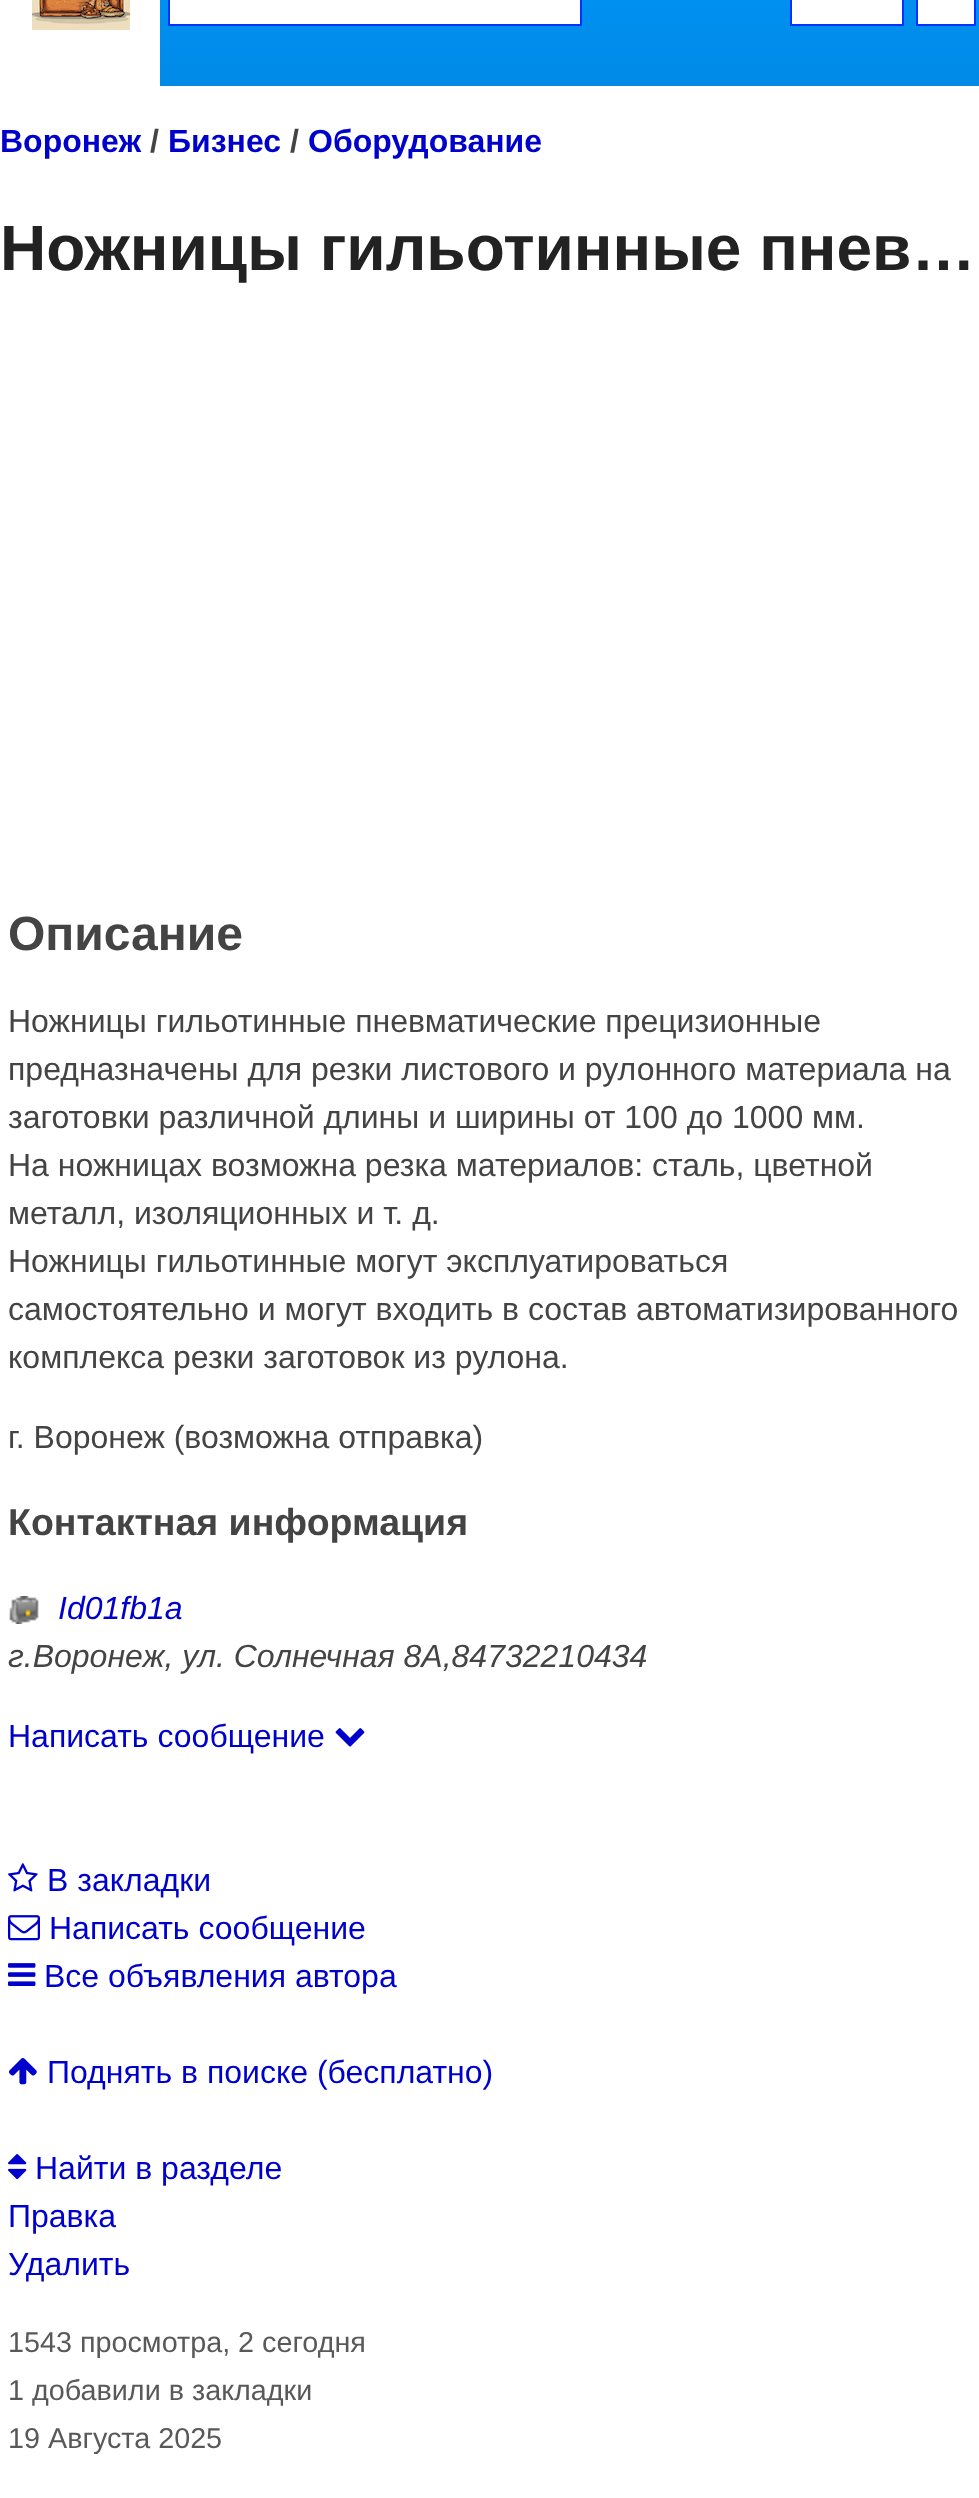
(async () => {
const canvas = document.querySelector("canvas")
canvas.width = 979
canvas.height = 2498
const c = canvas.getContext("2d")
c.miterLimit = 4
c.fontKerning = "normal"
function T(s,x,y){c.fillText(s,x,y)}
function R(x,y,w,h){c.fillRect(x,y,w,h)}
async function I(src,x,y,w,h){const img=new Image();img.src=src;await img.decode();c.drawImage(img,x,y,w,h)}
let gradient
c.fillStyle="#fff"
R(0,0,979,2498)
gradient = c.createLinearGradient(0,-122,0,86)
gradient.addColorStop(0,"#09f")
gradient.addColorStop(1,"#008ae6")
c.fillStyle = gradient
R(160,0,819,86)
await I("1.png",32,0,98,30)
c.fillStyle="#fff"
c.beginPath()
c.rect(169,-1,412,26)
c.fill()
c.strokeStyle="#03f"
c.lineWidth=2
c.stroke()
c.beginPath()
c.rect(791,-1,112,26)
c.fill()
c.stroke()
c.beginPath()
c.rect(917,-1,58,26)
c.fill()
c.stroke()
c.font="bold 32px Liberation Sans"
c.fillStyle="#00c"
T("Воронеж",0,152)
c.fillStyle="#444"
T("/",150,152)
c.fillStyle="#00c"
T("Бизнес",168,152)
c.fillStyle="#444"
T("/",290,152)
c.fillStyle="#00c"
T("Оборудование",308,152)
c.font="bold 64px Liberation Sans"
c.fillStyle="#222"
T("Ножницы гильотинные пнев…",0,270)
c.font="bold 48px Liberation Sans"
c.fillStyle="#444"
T("Описание",8,950)
c.font="32px Liberation Sans"
T("Ножницы гильотинные пневматические прецизионные",8,1032)
T("предназначены для резки листового и рулонного материала на",8,1080)
T("заготовки различной длины и ширины от 100 до 1000 мм.",8,1128)
T("На ножницах возможна резка материалов: сталь, цветной",8,1176)
T("металл, изоляционных и т. д.",8,1224)
T("Ножницы гильотинные могут эксплуатироваться",8,1272)
T("самостоятельно и могут входить в состав автоматизированного",8,1320)
T("комплекса резки заготовок из рулона.",8,1368)
T("г. Воронеж (возможна отправка)",8,1448)
c.font="bold 37.5px Liberation Sans"
T("Контактная информация",8,1535)
await I("2.png",9,1596,30,28)
c.font="italic 32px Liberation Sans"
c.fillStyle="#00c"
T("Id01fb1a",58,1619)
c.fillStyle="#444"
T("г.Воронеж, ул. Солнечная 8А,84732210434",8,1667)
c.font="32px Liberation Sans"
c.fillStyle="#00c"
T("Написать сообщение",8,1747)
await I("3.png",335,1728,30,19)
await I("4.png",8,1863,30,29)
T("В закладки",47,1891)
await I("5.png",8,1915,32,26)
T("Написать сообщение",49,1939)
await I("6.png",8,1963,28,23)
T("Все объявления автора",44,1987)
await I("7.png",9,2058,28,27)
T("Поднять в поиске (бесплатно)",47,2083)
await I("8.png",8,2154,19,26)
T("Найти в разделе",35,2179)
T("Правка",8,2227)
T("Удалить",8,2275)
c.font="28.75px Liberation Sans"
c.fillStyle="#595959"
T("1543 просмотра, 2 сегодня",8,2352)
T("1 добавили в закладки",8,2400)
T("19 Августа 2025",8,2448)
})()
